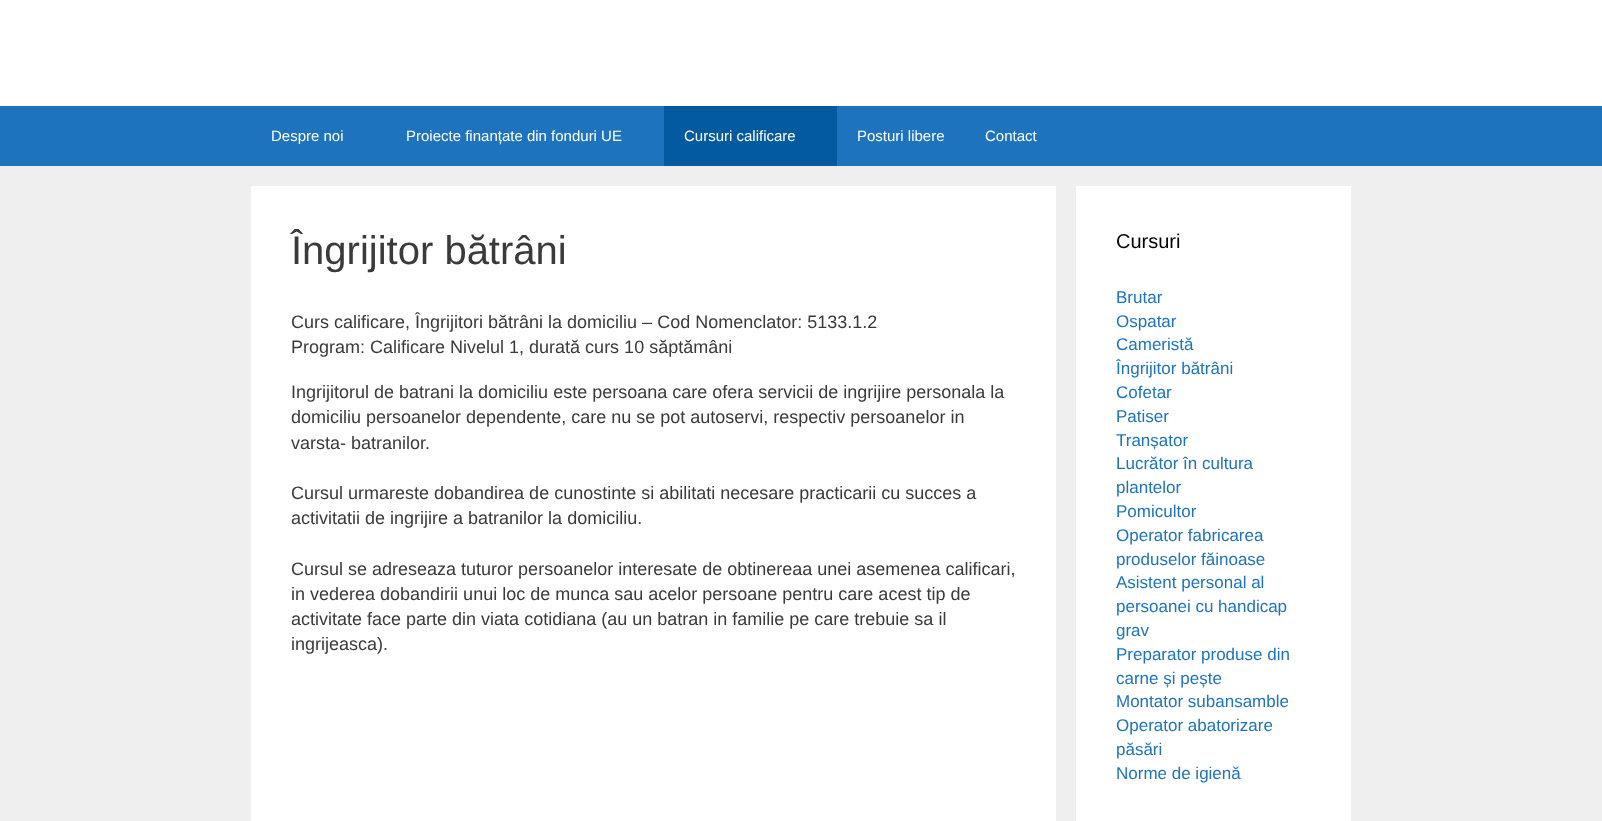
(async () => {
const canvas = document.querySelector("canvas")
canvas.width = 1602
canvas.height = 821
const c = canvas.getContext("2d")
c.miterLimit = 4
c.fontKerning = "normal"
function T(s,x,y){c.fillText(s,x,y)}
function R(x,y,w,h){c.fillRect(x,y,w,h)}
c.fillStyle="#efefef"
R(0,0,1602,821)
c.fillStyle="#fff"
R(0,0,1602,106)
c.fillStyle="#1e73be"
R(0,106,1602,60)
c.font="15px Liberation Sans"
c.fillStyle="#fff"
T("Despre noi",271,141)
T("Proiecte finanțate din fonduri UE",406,141)
c.fillStyle="#035a9e"
R(664,106,173,60)
c.fillStyle="#fff"
T("Cursuri calificare",684,141)
T("Posturi libere",857,141)
T("Contact",985,141)
R(251,186,805,635)
c.font="40px Liberation Sans"
c.fillStyle="#3a3a3a"
T("Îngrijitor bătrâni",291,264)
c.font="18px Liberation Sans"
T("Curs calificare, Îngrijitori bătrâni la domiciliu – Cod Nomenclator: 5133.1.2",291,328)
T("Program: Calificare Nivelul 1, durată curs 10 săptămâni",291,353)
T("Ingrijitorul de batrani la domiciliu este persoana care ofera servicii de ingrijire personala la",291,398)
T("domiciliu persoanelor dependente, care nu se pot autoservi, respectiv persoanelor in",291,423)
T("varsta- batranilor.",291,449)
T("Cursul urmareste dobandirea de cunostinte si abilitati necesare practicarii cu succes a",291,499)
T("activitatii de ingrijire a batranilor la domiciliu.",291,524)
T("Cursul se adreseaza tuturor persoanelor interesate de obtinereaa unei asemenea calificari,",291,575)
T("in vederea dobandirii unui loc de munca sau acelor persoane pentru care acest tip de",291,600)
T("activitate face parte din viata cotidiana (au un batran in familie pe care trebuie sa il",291,625)
T("ingrijeasca).",291,650)
c.fillStyle="#fff"
R(1076,186,275,635)
c.font="20px Liberation Sans"
c.fillStyle="#000"
T("Cursuri",1116,248)
c.font="17px Liberation Sans"
c.fillStyle="#1e73be"
T("Brutar",1116,303)
T("Ospatar",1116,327)
T("Cameristă",1116,350)
T("Îngrijitor bătrâni",1116,374)
T("Cofetar",1116,398)
T("Patiser",1116,422)
T("Tranșator",1116,446)
T("Lucrător în cultura",1116,469)
T("plantelor",1116,493)
T("Pomicultor",1116,517)
T("Operator fabricarea",1116,541)
T("produselor făinoase",1116,565)
T("Asistent personal al",1116,588)
T("persoanei cu handicap",1116,612)
T("grav",1116,636)
T("Preparator produse din",1116,660)
T("carne și pește",1116,684)
T("Montator subansamble",1116,707)
T("Operator abatorizare",1116,731)
T("păsări",1116,755)
T("Norme de igienă",1116,779)
})()
